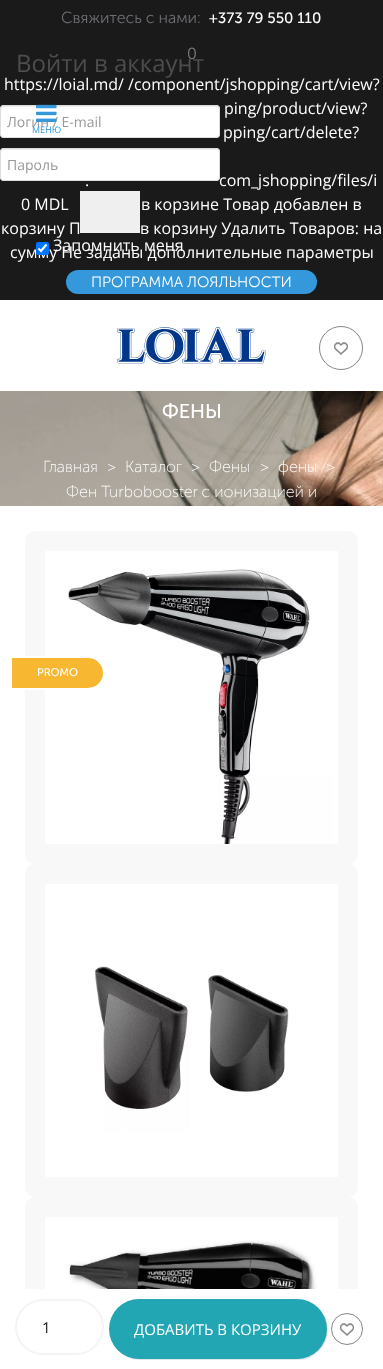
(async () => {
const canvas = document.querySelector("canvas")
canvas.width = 383
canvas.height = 1369
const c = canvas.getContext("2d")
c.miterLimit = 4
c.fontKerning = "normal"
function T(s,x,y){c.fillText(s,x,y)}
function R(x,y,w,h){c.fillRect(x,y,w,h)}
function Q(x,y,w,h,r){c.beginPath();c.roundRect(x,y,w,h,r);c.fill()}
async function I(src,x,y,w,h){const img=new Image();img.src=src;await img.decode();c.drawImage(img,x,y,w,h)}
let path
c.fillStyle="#fff"
R(0,0,383,1369)
c.fillStyle="#1a1a1b"
R(0,0,383,300)
c.font="300 16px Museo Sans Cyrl"
c.fillStyle="#6d6d72"
T("Свяжитесь с нами:",61,23)
c.font="15px Museo Sans Cyrl"
c.fillStyle="#fff"
T("+373 79 550 110",209,23)
c.font="300 16px Museo Sans Cyrl"
c.fillStyle="#7e7e83"
T("0",187,59)
c.font="16px Open Sans"
c.fillStyle="#fff"
T("https://loial.md/ /component/jshopping/cart/view?",4,90)
T("ping/product/view?",224,114)
T("pping/cart/delete?",223,138)
T(".",85,186)
T("com_jshopping/files/i",219,186)
T("0 MDL",21,210)
T("в корзине Товар добавлен в",141,210)
T("корзину П",1,234)
T("в корзину Удалить Товаров: на",140,234)
T("сумму Не заданы дополнительные параметры",10,258)
c.font="24px Open Sans"
c.fillStyle="#4d4d4d"
T("Войти в аккаунт",16,72)
c.fillStyle="#fff"
Q(0,105,220,33,4)
c.fillStyle="#ececec"
path = new Path2D("M4 107h212c2 0 3 1 3 3v-1c0-2-1-3-3-3h-212c-2 0-3 1-3 3v1c0-2 1-3 3-3z")
c.fill(path)
c.beginPath()
c.roundRect(.5,105.5,219,32,3.5)
c.strokeStyle="#ddd"
c.stroke()
c.font="14px Open Sans"
c.fillStyle="#999"
T("Логин / E-mail",7,127)
c.fillStyle="#fff"
Q(0,148,220,33,4)
c.fillStyle="#ececec"
path = new Path2D("M4 150h212c2 0 3 1 3 3v-1c0-2-1-3-3-3h-212c-2 0-3 1-3 3v1c0-2 1-3 3-3z")
c.fill(path)
c.beginPath()
c.roundRect(.5,148.5,219,32,3.5)
c.stroke()
c.fillStyle="#999"
T("Пароль",7,170)
c.fillStyle="#efefef"
R(80,191,60,42)
c.fillStyle="#0075ff"
Q(36,242,13,13,2)
path = new Path2D("M38.5 248.5l2.5 2.5l5.5-6.5")
c.strokeStyle="#fff"
c.lineWidth=2.1
c.stroke(path)
c.font="16px Open Sans"
c.fillStyle="#fff"
T("Запомнить меня",53,251)
c.beginPath()
c.arc(341,348,21.5,0,7)
c.strokeStyle="#868688"
c.lineWidth=1
c.stroke()
await I("1.png",334,342,14,13)
c.fillStyle="#3498db"
Q(66,270,251,24,12)
c.font="300 15px Museo Sans Cyrl"
c.fillStyle="#fff"
T("ПРОГРАММА ЛОЯЛЬНОСТИ",91,287)
await I("2.png",36,104,21,18)
c.font="9px Open Sans"
c.fillStyle="#3498db"
T("МЕНЮ",32,133)
await I("3.png",117,327,149,37)
await I("4.png",0,391,383,115)
c.font="20px Museo Sans Cyrl"
c.fillStyle="#fff"
T("ФЕНЫ",162,418)
c.font="200 16px Museo Sans Cyrl"
T("Главная",43,472)
T(">",107,472)
T("Каталог",125,472)
T(">",191,472)
T("Фены",209,472)
T(">",260,472)
T("фены",278,472)
T(">",326,472)
T("Фен Turbobooster с ионизацией и",66,497)
c.fillStyle="#f8f8f8"
Q(25,531,333,333,10)
await I("5.png",45,551,293,293)
Q(25,864,333,333,10)
await I("6.png",45,884,293,293)
Q(25,1197,333,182,10)
await I("7.png",45,1217,293,72)
c.fillStyle="#f7b731"
c.beginPath()
c.roundRect(11,657,93,32,[0,16,16,0])
c.fill()
c.strokeStyle="#fff"
c.lineWidth=2
c.stroke()
c.font="11px Museo Sans Cyrl"
c.fillStyle="#fff"
T("PROMO",37,676)
R(25,1289,333,80)
c.beginPath()
c.roundRect(16,1300,87,54,27)
c.strokeStyle="#f4f4f4"
c.stroke()
c.font="15px Open Sans"
c.fillStyle="#1a1a1b"
T("1",42,1333)
c.fillStyle="#0000001a"
c.filter="blur(0.5px)"
c.beginPath()
c.roundRect(110,1300,218,60,30)
c.fill()
c.filter="none"
c.fillStyle="#22a6b3"
Q(109,1299,218,60,30)
c.fillStyle="#fff"
T("ДОБАВИТЬ В КОРЗИНУ",134,1335)
await I("1.png",340,1323,14,13)
c.beginPath()
c.arc(347,1329,15.5,0,7)
c.strokeStyle="#868688"
c.lineWidth=1
c.stroke()
})()
